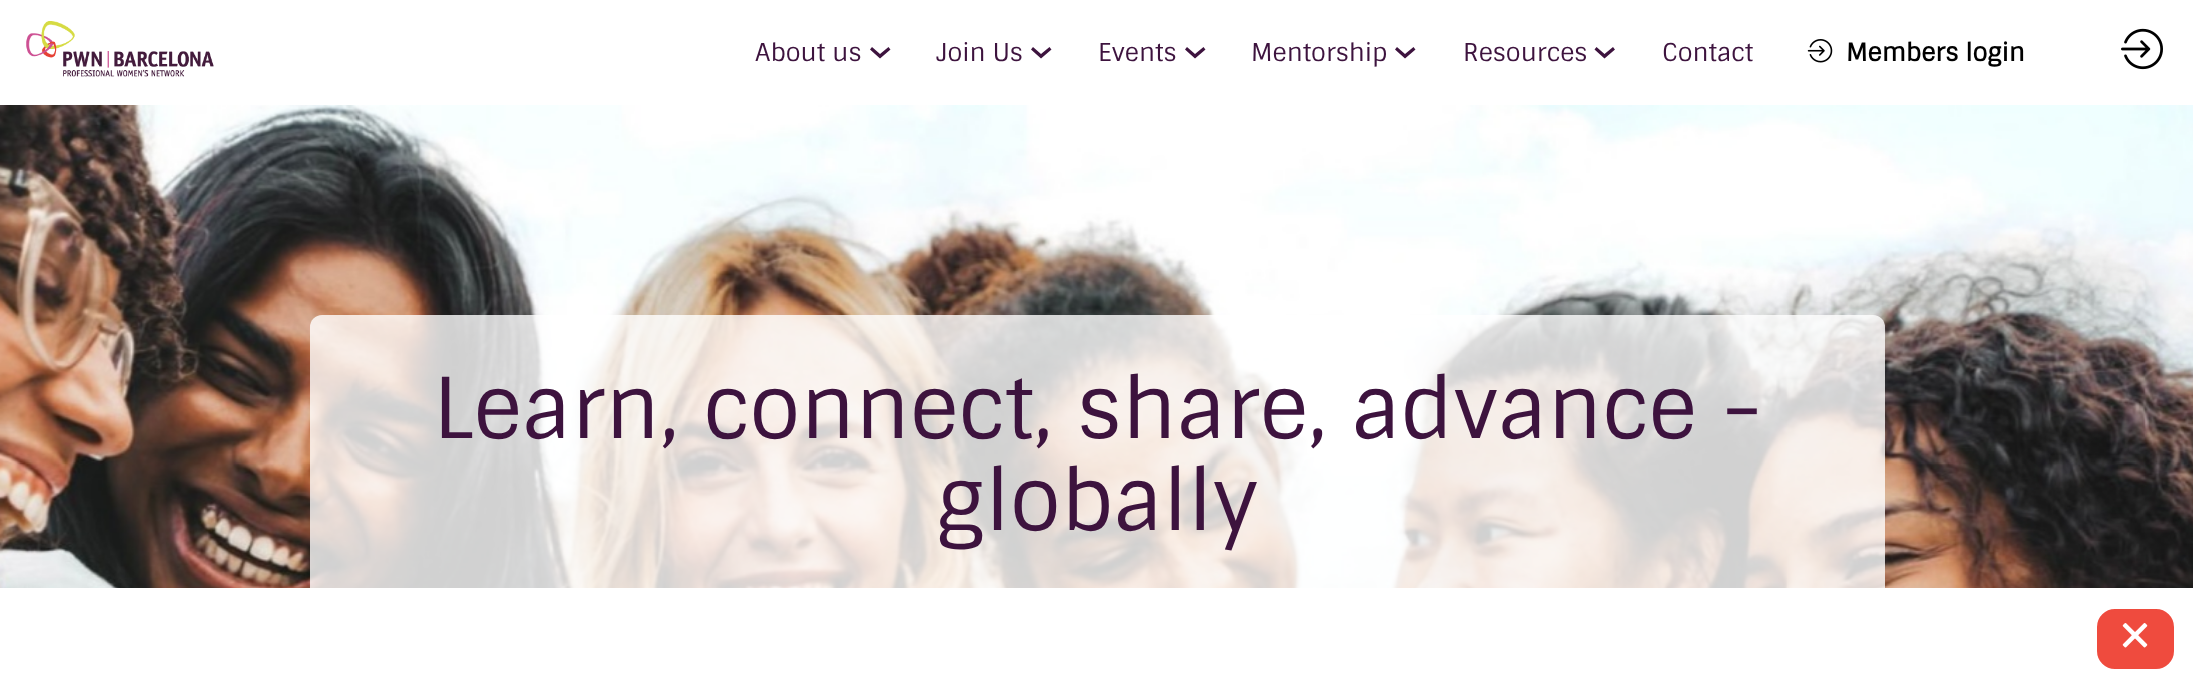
(async () => {
const canvas = document.querySelector("canvas")
canvas.width = 2193
canvas.height = 688
const c = canvas.getContext("2d")
c.miterLimit = 4
c.fontKerning = "normal"
function T(s,x,y){c.fillText(s,x,y)}
function R(x,y,w,h){c.fillRect(x,y,w,h)}
async function I(src,x,y,w,h){const img=new Image();img.src=src;await img.decode();c.drawImage(img,x,y,w,h)}
let path
c.fillStyle="#fff"
R(0,0,2193,688)
await I("1.png",26,21,188,56)
c.font="24.5px Sintony"
c.fillStyle="#3d133e"
T("About us",755,61)
path = new Path2D("M890 49l-1.5-2l-8.5 7l-8-7l-2 2.5l10 9l10.5-9z")
c.fill(path)
T("Join Us",936,61)
path = new Path2D("M1051 49l-1.5-2l-8.5 7l-8-7l-2 2.5l10 9l10.5-9z")
c.fill(path)
T("Events",1098,61)
path = new Path2D("M1205 49l-1.5-2l-8.5 7l-8-7l-2 2.5l10 9l10.5-9z")
c.fill(path)
T("Mentorship",1251,61)
path = new Path2D("M1415 49l-1.5-2l-8.5 7l-8-7l-2 2.5l10 9l10.5-9z")
c.fill(path)
T("Resources",1463,61)
path = new Path2D("M1614.5 49l-1.5-2l-8.5 7l-8-7l-2 2.5l10 9l10.5-9z")
c.fill(path)
T("Contact",1662,61)
await I("2.png",1807,39,26,24)
c.font="bold 24.5px Sintony"
c.fillStyle="#000"
T("Members login",1846,61)
await I("3.png",2121,28,42,42)
await I("4.png",0,105,2193,483)
c.fillStyle="#ffffffcc"
c.beginPath()
c.roundRect(310,315,1575,273,[12,12,0,0])
c.fill()
c.font="84px Sintony"
c.fillStyle="#3d133e"
T("Learn, connect, share, advance -",433,438)
T("globally",937,530)
c.fillStyle="#ef4b3e"
c.beginPath()
c.roundRect(2098,610,75,58,17)
c.fill()
c.strokeStyle="#ef4b3e"
c.lineWidth=2
c.stroke()
await I("5.png",2122,623,26,25)
})()
